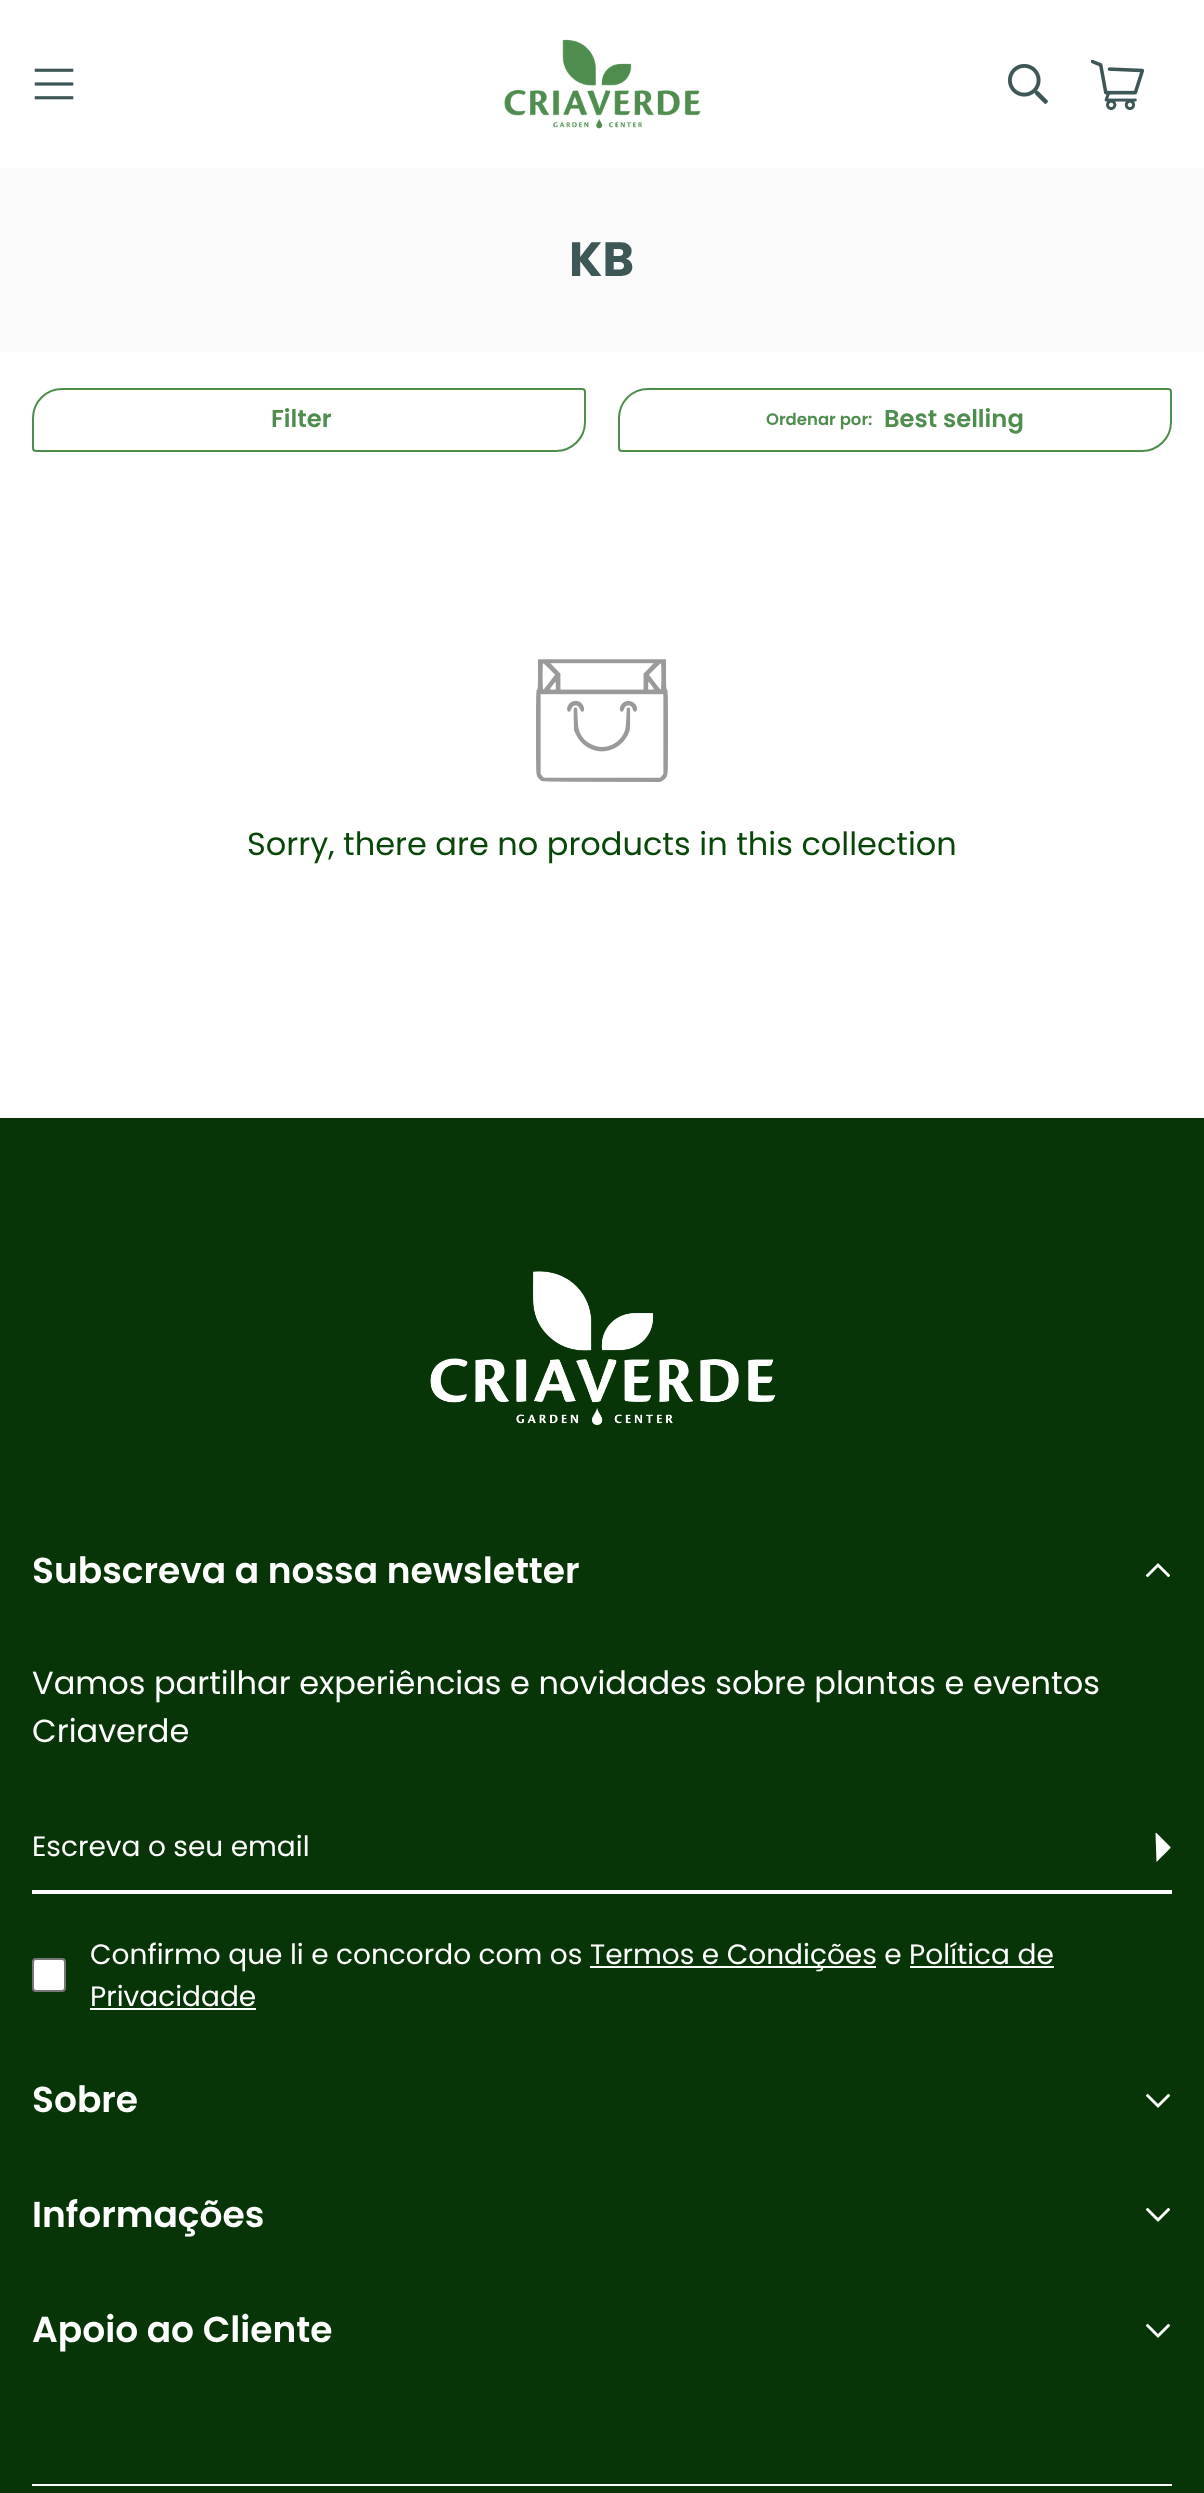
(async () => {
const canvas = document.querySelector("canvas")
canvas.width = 1204
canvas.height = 2493
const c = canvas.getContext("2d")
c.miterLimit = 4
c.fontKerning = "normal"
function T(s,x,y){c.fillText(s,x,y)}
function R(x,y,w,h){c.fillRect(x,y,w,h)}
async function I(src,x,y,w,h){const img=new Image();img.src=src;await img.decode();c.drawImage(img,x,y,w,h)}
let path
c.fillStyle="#fff"
R(0,0,1204,2493)
await I("1.png",34,68,40,32)
await I("2.png",504,39,197,90)
await I("3.png",1008,64,40,40)
await I("4.png",1091,60,53,50)
c.fillStyle="#fafafa"
R(0,168,1204,184)
c.font="bold 48px Poppins"
c.fillStyle="#3d5656"
T("KB",569,276)
c.beginPath()
c.roundRect(33,389,552,62,[29,3,29,3])
c.strokeStyle="#4e8d4e"
c.lineWidth=2
c.stroke()
c.font="600 24.25px Poppins"
c.fillStyle="#4e8d4e"
T("Filter",271,427)
c.beginPath()
c.roundRect(619,389,552,62,[29,3,29,3])
c.stroke()
c.font="600 16.5px Poppins"
T("Ordenar por:",766,425)
c.font="600 24.25px Poppins"
T("Best selling",884,427)
await I("5.png",536,659,132,123)
c.font="32px Poppins"
c.fillStyle="#094709"
T("Sorry, there are no products in this collection",247,855)
c.fillStyle="#083508"
R(0,1118,1204,1375)
await I("6.png",430,1271,346,155)
c.font="600 36px Poppins"
c.fillStyle="#fff"
T("Subscreva a nossa newsletter",32,1583)
await I("7.png",1145,1563,26,15)
c.font="32px Poppins"
T("Vamos partilhar experiências e novidades sobre plantas e eventos",32,1694)
T("Criaverde",32,1742)
R(32,1890,1140,4)
c.font="28px Poppins"
T("Escreva o seu email",32,1856)
path = new Path2D("M1155.5 1833c.5 0 .5 0 1 0l14 14c0 .5 0 .5 0 1l-14 14")
c.fill(path)
c.beginPath()
c.roundRect(33,1959,32,32,3)
c.fill()
c.strokeStyle="#767676"
c.stroke()
T("Confirmo que li e concordo com os",90,1964)
R(590,1966,286,2)
T("Termos e Condições e Política de",590,1964)
T("Privacidade",90,2006)
R(910,1966,144,2)
R(90,2008,166,2)
c.font="600 36px Poppins"
T("Sobre",32,2112)
await I("8.png",1145,2093,26,15)
T("Informações",32,2227)
await I("8.png",1145,2207,26,15)
T("Apoio ao Cliente",32,2342)
await I("8.png",1145,2323,26,15)
R(32,2484,1140,2)
})()
